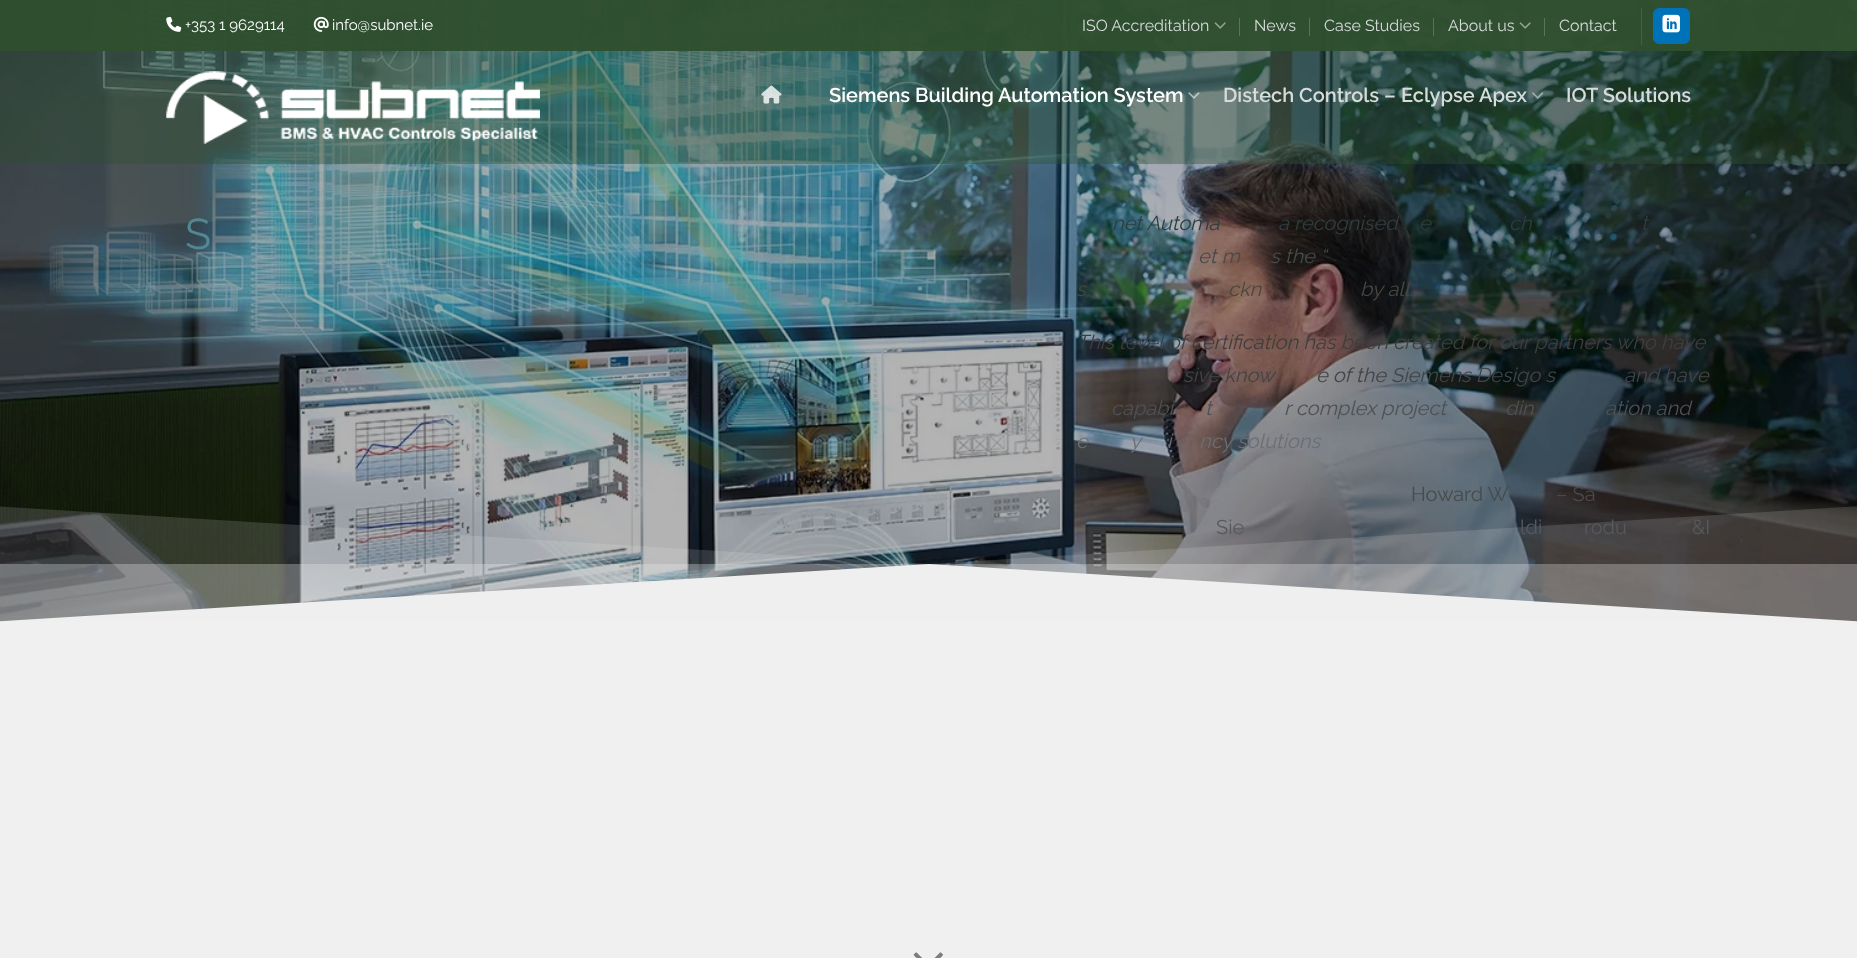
(async () => {
const canvas = document.querySelector("canvas")
canvas.width = 1857
canvas.height = 958
const c = canvas.getContext("2d")
c.miterLimit = 4
c.fontKerning = "normal"
function T(s,x,y){c.fillText(s,x,y)}
function R(x,y,w,h){c.fillRect(x,y,w,h)}
async function I(src,x,y,w,h){const img=new Image();img.src=src;await img.decode();c.drawImage(img,x,y,w,h)}
let path
c.fillStyle="#f0f0f0"
R(0,0,1857,958)
await I("10.png",0,0,1857,622)
c.fillStyle="#2f4f2f63"
R(0,0,1857,164)
c.fillStyle="#2f4f2ff5"
R(0,0,1857,51)
await I("1.png",166,16,16,16)
c.font="15px Raleway"
c.fillStyle="#fff"
T("+353 1 9629114",185,30)
await I("2.png",313,16,16,16)
T("info@subnet.ie",332,30)
c.font="16px Raleway"
c.fillStyle="#d7dcdb"
T("ISO Accreditation",1082,31)
await I("3.png",1214,22,12,7)
c.fillStyle="#5a735b"
R(1239,18,1,18)
c.fillStyle="#d7dcdb"
T("News",1254,31)
c.fillStyle="#59725a"
R(1309,18,1,18)
c.fillStyle="#d7dcdb"
T("Case Studies",1324,31)
c.fillStyle="#59735a"
R(1433,18,1,18)
c.fillStyle="#d7dcdb"
T("About us",1448,31)
await I("4.png",1519,22,12,7)
c.fillStyle="#5a745b"
R(1544,18,1,18)
c.fillStyle="#d7dcdb"
T("Contact",1559,31)
c.fillStyle="#436043"
R(1641,8,1,37)
c.fillStyle="#0072b7"
c.beginPath()
c.roundRect(1653.5,8.5,36,35,5.5)
c.fill()
c.strokeStyle="#0072b7"
c.stroke()
await I("5.png",1662,14,18,19)
await I("6.png",166,71,374,73)
await I("7.png",761,85,21,19)
c.font="600 20px Raleway"
c.fillStyle="#fff"
T("Siemens Building Automation System",829,102)
await I("8.png",1188,92,12,7)
c.fillStyle="#d7dcdb"
T("Distech Controls – Eclypse Apex",1223,102)
await I("9.png",1532,92,12,7)
T("IOT Solutions",1566,102)
c.font="43px Raleway"
c.fillStyle="#538792"
T("S",185,249)
c.font="italic 20px Raleway"
c.fillStyle="#303d3f"
T("net Automa",1112,230)
T("a recognised",1278,230)
T("e",1419,230)
T("ch",1509,230)
T("t",1641,230)
c.fillStyle="#464b4b"
T("et m",1198,263)
T("s the “",1270,263)
c.fillStyle="#1e3536"
T("l",1547,263)
c.fillStyle="#4b4740"
T("s",1076,296)
T("ckn",1228,296)
T("by all.",1360,296)
c.fillStyle="#3f3e3e"
T("This level of certification has been created for our partners who have",1076,349)
c.fillStyle="#434446"
T("sive know",1183,382)
T("e of the Siemens Desigo s",1316,382)
T("and have",1624,382)
c.fillStyle="#4e5155"
T("capabi",1111,415)
T("t",1205,415)
T("r complex project",1284,415)
T("din",1505,415)
T("ation and",1605,415)
c.fillStyle="#6b6e75"
T("e",1076,448)
T("y",1130,448)
T("i",1167,448)
T("ncy solutions",1199,448)
c.font="20px Raleway"
c.fillStyle="#464b4b"
T("Howard W",1411,501)
T("– Sa",1556,501)
c.save()
c.beginPath()
c.rect(0,501,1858,125)
c.clip()
c.fillStyle="#f0f0f0"
path = new Path2D("M929 564l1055 65h-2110z")
c.fill(path)
c.fillStyle="#f0f0f026"
path = new Path2D("M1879 505l-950 59l-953-59v127h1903z")
c.fill(path)
c.restore()
c.fillStyle="#56595e"
T("Sie",1216,534)
T("ldi",1520,534)
T("rodu",1584,534)
T("&I",1692,534)
c.fillStyle="#f0f0f04d"
R(0,564,1857,58)
await I("11.png",913,952,30,6)
})()
